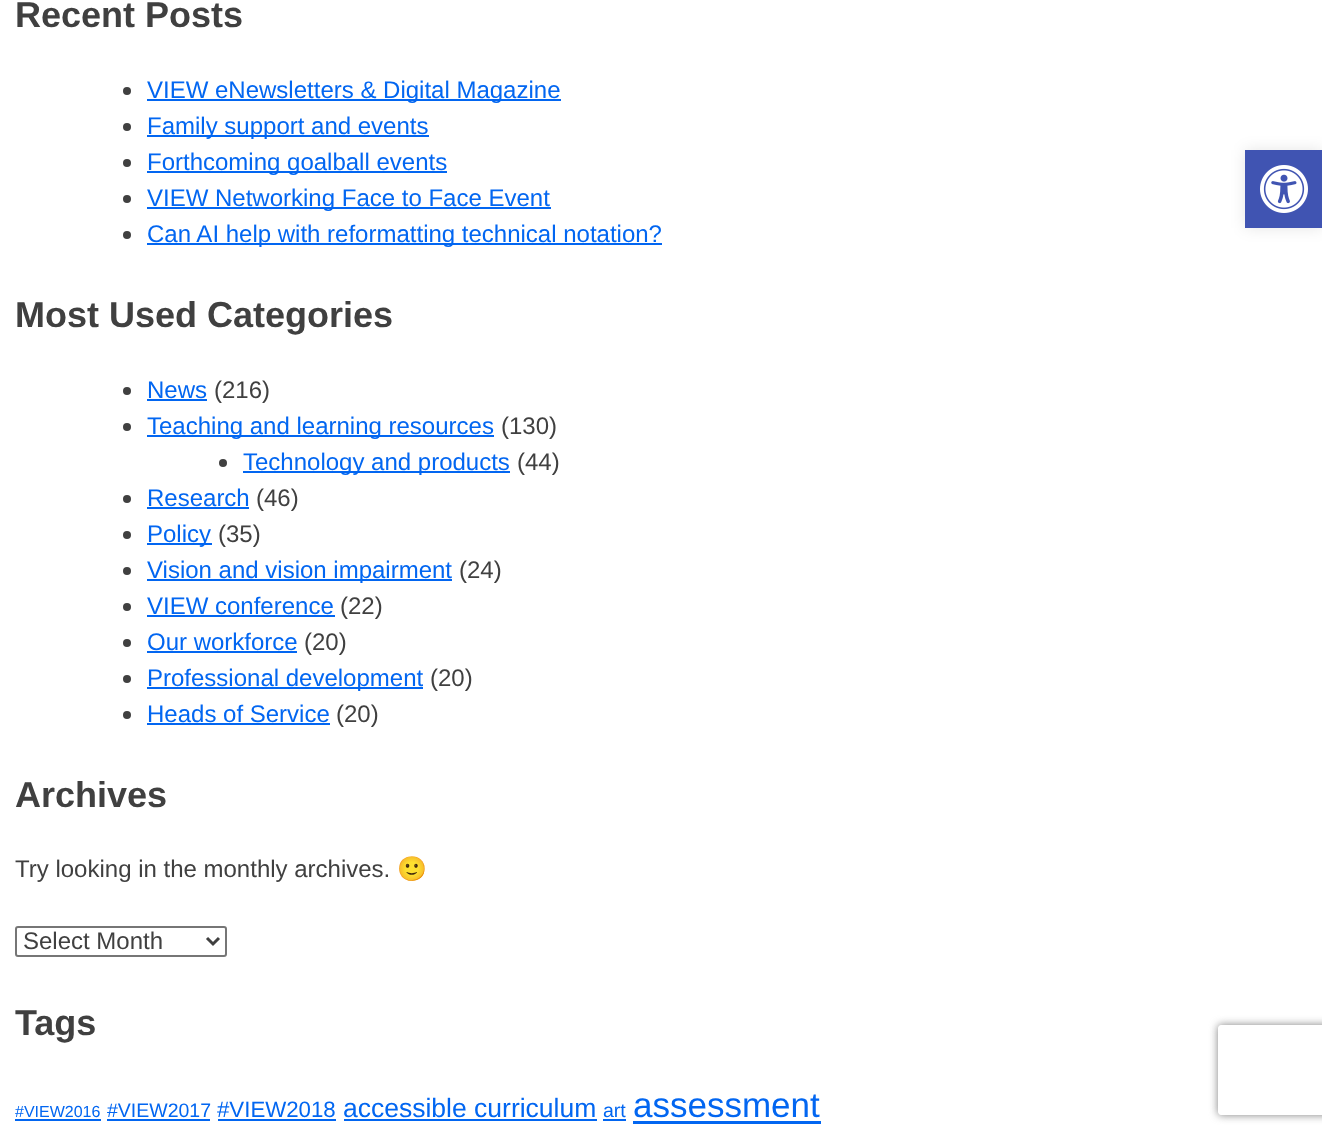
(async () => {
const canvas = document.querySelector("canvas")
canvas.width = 1322
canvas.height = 1135
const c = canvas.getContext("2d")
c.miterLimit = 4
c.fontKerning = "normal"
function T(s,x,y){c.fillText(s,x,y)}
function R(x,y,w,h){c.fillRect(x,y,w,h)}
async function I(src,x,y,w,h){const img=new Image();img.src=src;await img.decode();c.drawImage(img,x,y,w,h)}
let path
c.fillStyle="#fff"
R(0,0,1322,1135)
c.font="bold 36px Liberation Sans"
c.fillStyle="#404040"
T("Recent Posts",15,27)
c.beginPath()
c.arc(127,91,4,0,7)
c.fill()
c.fillStyle="#0266f1"
R(147,99,414,2)
c.font="24px Liberation Sans"
T("VIEW eNewsletters & Digital Magazine",147,98)
c.fillStyle="#404040"
c.beginPath()
c.arc(127,127,4,0,7)
c.fill()
c.fillStyle="#0266f1"
R(147,135,282,2)
T("Family support and events",147,134)
c.fillStyle="#404040"
c.beginPath()
c.arc(127,163,4,0,7)
c.fill()
c.fillStyle="#0266f1"
R(147,171,300,2)
T("Forthcoming goalball events",147,170)
c.fillStyle="#404040"
c.beginPath()
c.arc(127,199,4,0,7)
c.fill()
c.fillStyle="#0266f1"
R(147,207,404,2)
T("VIEW Networking Face to Face Event",147,206)
c.fillStyle="#404040"
c.beginPath()
c.arc(127,235,4,0,7)
c.fill()
c.fillStyle="#0266f1"
R(147,243,515,2)
T("Can AI help with reformatting technical notation?",147,242)
c.font="bold 36px Liberation Sans"
c.fillStyle="#404040"
T("Most Used Categories",15,327)
c.beginPath()
c.arc(127,391,4,0,7)
c.fill()
c.font="24px Liberation Sans"
c.fillStyle="#0266f1"
T("News",147,398)
R(147,399,60,2)
c.fillStyle="#404040"
T("(216)",214,398)
c.beginPath()
c.arc(127,427,4,0,7)
c.fill()
c.fillStyle="#0266f1"
R(147,435,347,2)
T("Teaching and learning resources",147,434)
c.fillStyle="#404040"
T("(130)",501,434)
c.beginPath()
c.arc(223,463,4,0,7)
c.fill()
c.fillStyle="#0266f1"
R(243,471,267,2)
T("Technology and products",243,470)
c.fillStyle="#404040"
T("(44)",517,470)
c.beginPath()
c.arc(127,499,4,0,7)
c.fill()
c.fillStyle="#0266f1"
T("Research",147,506)
R(147,507,102,2)
c.fillStyle="#404040"
T("(46)",256,506)
c.beginPath()
c.arc(127,535,4,0,7)
c.fill()
c.fillStyle="#0266f1"
R(147,543,65,2)
T("Policy",147,542)
c.fillStyle="#404040"
T("(35)",218,542)
c.beginPath()
c.arc(127,571,4,0,7)
c.fill()
c.fillStyle="#0266f1"
R(147,579,305,2)
T("Vision and vision impairment",147,578)
c.fillStyle="#404040"
T("(24)",459,578)
c.beginPath()
c.arc(127,607,4,0,7)
c.fill()
c.fillStyle="#0266f1"
T("VIEW conference",147,614)
R(147,615,188,2)
c.fillStyle="#404040"
T("(22)",340,614)
c.beginPath()
c.arc(127,643,4,0,7)
c.fill()
c.fillStyle="#0266f1"
T("Our workforce",147,650)
R(147,651,150,2)
c.fillStyle="#404040"
T("(20)",304,650)
c.beginPath()
c.arc(127,679,4,0,7)
c.fill()
c.fillStyle="#0266f1"
R(147,687,276,2)
T("Professional development",147,686)
c.fillStyle="#404040"
T("(20)",430,686)
c.beginPath()
c.arc(127,715,4,0,7)
c.fill()
c.fillStyle="#0266f1"
T("Heads of Service",147,722)
R(147,723,183,2)
c.fillStyle="#404040"
T("(20)",336,722)
c.font="bold 36px Liberation Sans"
T("Archives",15,807)
c.font="24px Liberation Sans"
T("Try looking in the monthly archives.",15,877)
c.font="24px Noto Color Emoji"
T("🙂",397,877)
c.beginPath()
c.roundRect(16,927,210,29,2)
c.strokeStyle="#767676"
c.lineWidth=2
c.stroke()
path = new Path2D("M207 938l6 6l6-6")
c.strokeStyle="#404040"
c.lineWidth=3
c.stroke(path)
c.font="24px Liberation Sans"
T("Select Month",23,949)
c.font="bold 36px Liberation Sans"
T("Tags",15,1035)
c.font="16px Liberation Sans"
c.fillStyle="#0266f1"
T("#VIEW2016",15,1117)
R(15,1119,86,2)
c.font="19.5px Liberation Sans"
T("#VIEW2017",107,1117)
R(107,1119,103,2)
c.font="22.25px Liberation Sans"
T("#VIEW2018",217,1117)
R(218,1119,118,2)
c.font="26.5px Liberation Sans"
T("accessible curriculum",343,1117)
R(344,1119,253,2)
c.font="19.5px Liberation Sans"
T("art",603,1117)
R(603,1119,23,2)
c.font="35px Liberation Sans"
T("assessment",633,1117)
R(633,1121,188,3)
c.fillStyle="#0000001a"
c.filter="blur(7.5px)"
c.beginPath()
c.rect(1245,150,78,78)
c.fill()
c.filter="none"
c.fillStyle="#4054b2"
R(1245,150,77,78)
await I("1.png",1260,165,48,48)
c.save()
path = new Path2D("M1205 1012h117v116h-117zm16 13h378c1.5 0 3 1.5 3 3v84c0 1.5-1.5 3-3 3h-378c-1.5 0-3-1.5-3-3v-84c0-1.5 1.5-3 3-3z")
c.clip(path,"evenodd")
c.fillStyle="#808080"
c.filter="blur(4px)"
c.beginPath()
c.roundRect(1218,1025,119,90,3)
c.fill()
c.filter="none"
c.restore()
})()
